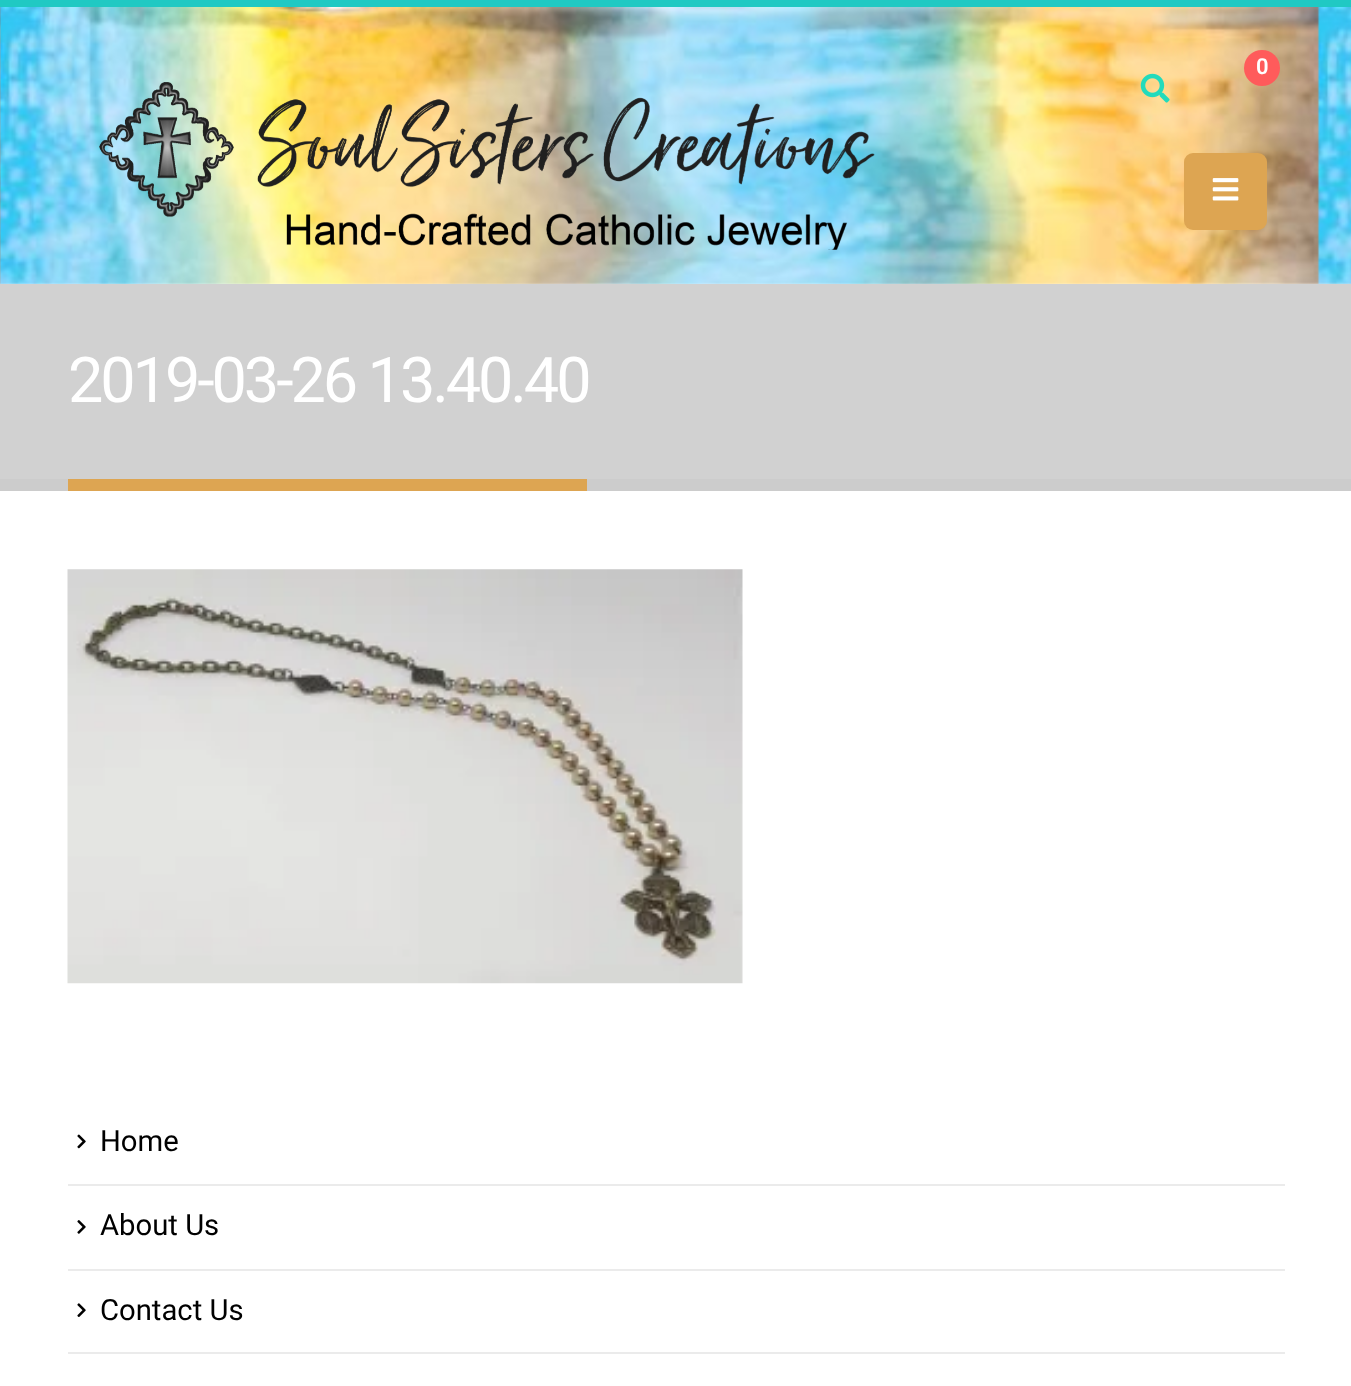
(async () => {
const canvas = document.querySelector("canvas")
canvas.width = 1351
canvas.height = 1386
const c = canvas.getContext("2d")
c.miterLimit = 4
c.fontKerning = "normal"
function T(s,x,y){c.fillText(s,x,y)}
function R(x,y,w,h){c.fillRect(x,y,w,h)}
function Q(x,y,w,h,r){c.beginPath();c.roundRect(x,y,w,h,r);c.fill()}
async function I(src,x,y,w,h){const img=new Image();img.src=src;await img.decode();c.drawImage(img,x,y,w,h)}
c.fillStyle="#fff"
R(0,0,1351,1386)
await I("1.png",0,282,1351,2)
c.fillStyle="#20c9c3"
R(0,0,1351,7)
await I("2.png",0,7,1351,277)
c.fillStyle="#ff5b5b"
c.beginPath()
c.arc(1262,68,18,0,7)
c.fill()
c.font="600 22px Roboto"
c.fillStyle="#fff"
T("0",1256,74)
await I("3.png",1140,73,30,30)
c.fillStyle="#dda552"
Q(1184,153,83,77,9)
await I("4.png",1212,178,27,23)
await I("5.png",99,82,776,168)
c.fillStyle="#d1d1d1"
R(0,284,1351,195)
c.fillStyle="#ccc"
R(0,479,1351,12)
c.letterSpacing="-3.1px"
c.font="63px Roboto"
c.fillStyle="#fff"
T("2019-03-26 13.40.40",68,402)
c.fillStyle="#dda552"
R(68,479,519,12)
await I("6.png",67,569,676,415)
await I("7.png",77,1134,9,15)
c.letterSpacing="0px"
c.font="29.25px Roboto"
c.fillStyle="#000"
T("Home",100,1151)
c.fillStyle="#ebebeb"
R(68,1184,1217,2)
await I("8.png",77,1220,9,14)
c.fillStyle="#000"
T("About Us",100,1235)
c.fillStyle="#ebebeb"
R(68,1269,1217,2)
await I("9.png",77,1303,9,14)
c.fillStyle="#000"
T("Contact Us",100,1320)
c.fillStyle="#ebebeb"
R(68,1352,1217,2)
})()
